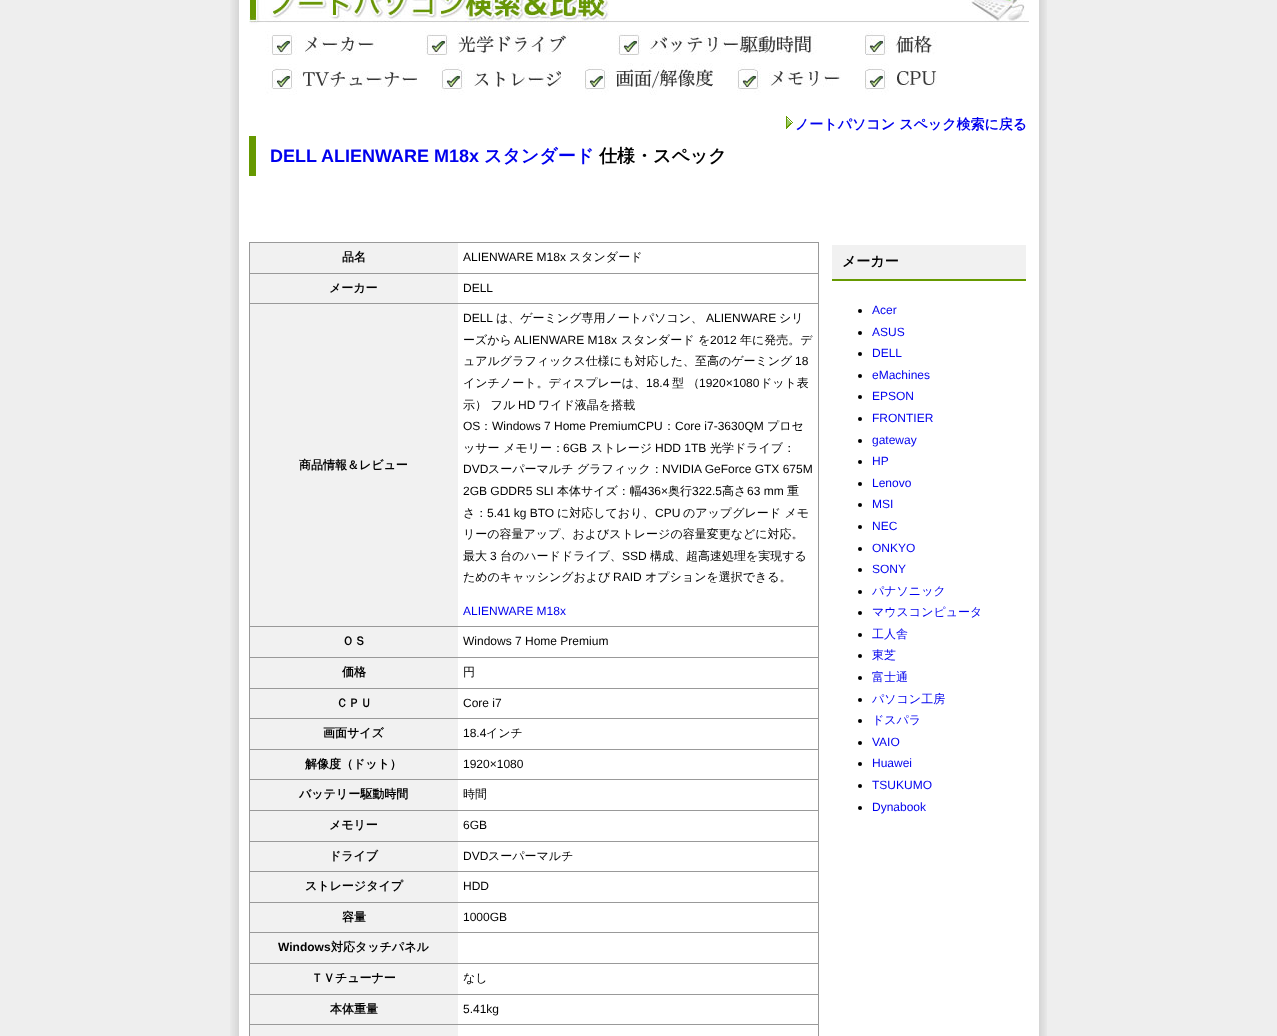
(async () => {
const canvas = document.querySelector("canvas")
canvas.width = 1277
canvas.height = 1036
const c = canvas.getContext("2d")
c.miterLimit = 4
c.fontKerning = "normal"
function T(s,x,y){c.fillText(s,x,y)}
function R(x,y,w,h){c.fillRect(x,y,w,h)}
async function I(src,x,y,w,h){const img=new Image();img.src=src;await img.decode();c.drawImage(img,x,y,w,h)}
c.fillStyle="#eee"
R(0,0,1277,1036)
await I("1.png",230,0,9,1036)
c.fillStyle="#fff"
R(239,0,800,1036)
await I("2.png",249,0,780,95)
await I("3.png",786,116,7,13)
c.font="bold 14px WenQuanYi Zen Hei"
c.fillStyle="#00e"
T("ノートパソコン スペック検索に戻る",795,129)
c.fillStyle="#690"
R(249,136,7,40)
c.font="bold 18px Liberation Sans"
c.fillStyle="#00e"
T("DELL ALIENWARE M18x",270,162)
c.font="bold 18px WenQuanYi Zen Hei"
T("スタンダード",484,162)
c.fillStyle="#000"
T("仕様・スペック",599,162)
c.fillStyle="#999"
R(249,242,570,794)
c.fillStyle="#fff"
R(458,243,360,30)
c.fillStyle="#f1f1f1"
R(250,243,208,30)
c.font="bold 12px WenQuanYi Zen Hei"
c.fillStyle="#000"
T("品名",342,261)
c.font="12px Liberation Sans"
T("ALIENWARE M18x",463,261)
c.font="500 12px WenQuanYi Zen Hei"
T("スタンダード",569,261)
c.fillStyle="#fff"
R(458,274,360,29)
c.fillStyle="#f1f1f1"
R(250,274,208,29)
c.font="bold 12px WenQuanYi Zen Hei"
c.fillStyle="#000"
T("メーカー",329,292)
c.font="12px Liberation Sans"
T("DELL",463,292)
c.fillStyle="#fff"
R(458,304,360,322)
c.fillStyle="#f1f1f1"
R(250,304,208,322)
c.font="bold 12px WenQuanYi Zen Hei"
c.fillStyle="#000"
T("商品情報＆レビュー",299,469)
c.font="12px Liberation Sans"
T("DELL",463,322)
c.font="500 12px WenQuanYi Zen Hei"
T("は、ゲーミング専用ノートパソコン、",496,322)
c.font="12px Liberation Sans"
T("ALIENWARE",706,322)
c.font="500 12px WenQuanYi Zen Hei"
T("シリ",779,322)
T("ーズから",463,344)
c.font="12px Liberation Sans"
T("ALIENWARE M18x",514,344)
c.font="500 12px WenQuanYi Zen Hei"
T("スタンダード を",621,344)
c.font="12px Liberation Sans"
T("2012",710,344)
c.font="500 12px WenQuanYi Zen Hei"
T("年に発売。デ",740,344)
T("ュアルグラフィックス仕様にも対応した、至高のゲーミング",463,365)
c.font="12px Liberation Sans"
T("18",795,365)
c.font="500 12px WenQuanYi Zen Hei"
T("インチノート。ディスプレーは、",463,387)
c.font="12px Liberation Sans"
T("18.4",646,387)
c.font="500 12px WenQuanYi Zen Hei"
T("型 （",672,387)
c.font="12px Liberation Sans"
T("1920×1080",699,387)
c.font="500 12px WenQuanYi Zen Hei"
T("ドット表",760,387)
T("示） フル",463,409)
c.font="12px Liberation Sans"
T("HD",518,409)
c.font="500 12px WenQuanYi Zen Hei"
T("ワイド液晶を搭載",538,409)
c.font="12px Liberation Sans"
T("OS",463,430)
c.font="500 12px WenQuanYi Zen Hei"
T("：",480,430)
c.font="12px Liberation Sans"
T("Windows 7 Home PremiumCPU",492,430)
c.font="500 12px WenQuanYi Zen Hei"
T("：",663,430)
c.font="12px Liberation Sans"
T("Core i7-3630QM",675,430)
c.font="500 12px WenQuanYi Zen Hei"
T("プロセ",767,430)
T("ッサー メモリー：",463,452)
c.font="12px Liberation Sans"
T("6GB",563,452)
c.font="500 12px WenQuanYi Zen Hei"
T("ストレージ",591,452)
c.font="12px Liberation Sans"
T("HDD 1TB",655,452)
c.font="500 12px WenQuanYi Zen Hei"
T("光学ドライブ：",710,452)
c.font="12px Liberation Sans"
T("DVD",463,473)
c.font="500 12px WenQuanYi Zen Hei"
T("スーパーマルチ グラフィック：",488,473)
c.font="12px Liberation Sans"
T("NVIDIA GeForce GTX 675M",662,473)
T("2GB GDDR5 SLI",463,495)
c.font="500 12px WenQuanYi Zen Hei"
T("本体サイズ：幅",557,495)
c.font="12px Liberation Sans"
T("436×",641,495)
c.font="500 12px WenQuanYi Zen Hei"
T("奥行",668,495)
c.font="12px Liberation Sans"
T("322.5",692,495)
c.font="500 12px WenQuanYi Zen Hei"
T("高さ",722,495)
c.font="12px Liberation Sans"
T("63 mm",747,495)
c.font="500 12px WenQuanYi Zen Hei"
T("重",787,495)
T("さ：",463,517)
c.font="12px Liberation Sans"
T("5.41 kg BTO",487,517)
c.font="500 12px WenQuanYi Zen Hei"
T("に対応しており、",557,517)
c.font="12px Liberation Sans"
T("CPU",655,517)
c.font="500 12px WenQuanYi Zen Hei"
T("のアップグレード メモ",683,517)
T("リーの容量アップ、およびストレージの容量変更などに対応。",463,538)
T("最大",463,560)
c.font="12px Liberation Sans"
T("3",490,560)
c.font="500 12px WenQuanYi Zen Hei"
T("台のハードドライブ、",500,560)
c.font="12px Liberation Sans"
T("SSD",622,560)
c.font="500 12px WenQuanYi Zen Hei"
T("構成、超高速処理を実現する",650,560)
T("ためのキャッシングおよび",463,581)
c.font="12px Liberation Sans"
T("RAID",613,581)
c.font="500 12px WenQuanYi Zen Hei"
T("オプションを選択できる。",645,581)
c.font="12px Liberation Sans"
c.fillStyle="#00e"
T("ALIENWARE M18x",463,615)
c.fillStyle="#fff"
R(458,627,360,30)
c.fillStyle="#f1f1f1"
R(250,627,208,30)
c.font="bold 12px WenQuanYi Zen Hei"
c.fillStyle="#000"
T("ＯＳ",342,645)
c.font="12px Liberation Sans"
T("Windows 7 Home Premium",463,645)
c.fillStyle="#fff"
R(458,658,360,30)
c.fillStyle="#f1f1f1"
R(250,658,208,30)
c.font="bold 12px WenQuanYi Zen Hei"
c.fillStyle="#000"
T("価格",342,676)
c.font="500 12px WenQuanYi Zen Hei"
T("円",463,676)
c.fillStyle="#fff"
R(458,689,360,29)
c.fillStyle="#f1f1f1"
R(250,689,208,29)
c.font="bold 12px WenQuanYi Zen Hei"
c.fillStyle="#000"
T("ＣＰＵ",336,707)
c.font="12px Liberation Sans"
T("Core i7",463,707)
c.fillStyle="#fff"
R(458,719,360,30)
c.fillStyle="#f1f1f1"
R(250,719,208,30)
c.font="bold 12px WenQuanYi Zen Hei"
c.fillStyle="#000"
T("画面サイズ",323,737)
c.font="12px Liberation Sans"
T("18.4",463,737)
c.font="500 12px WenQuanYi Zen Hei"
T("インチ",486,737)
c.fillStyle="#fff"
R(458,750,360,29)
c.fillStyle="#f1f1f1"
R(250,750,208,29)
c.font="bold 12px WenQuanYi Zen Hei"
c.fillStyle="#000"
T("解像度（ドット）",305,768)
c.font="12px Liberation Sans"
T("1920×1080",463,768)
c.fillStyle="#fff"
R(458,780,360,30)
c.fillStyle="#f1f1f1"
R(250,780,208,30)
c.font="bold 12px WenQuanYi Zen Hei"
c.fillStyle="#000"
T("バッテリー駆動時間",299,798)
c.font="500 12px WenQuanYi Zen Hei"
T("時間",463,798)
c.fillStyle="#fff"
R(458,811,360,30)
c.fillStyle="#f1f1f1"
R(250,811,208,30)
c.font="bold 12px WenQuanYi Zen Hei"
c.fillStyle="#000"
T("メモリー",329,829)
c.font="12px Liberation Sans"
T("6GB",463,829)
c.fillStyle="#fff"
R(458,842,360,29)
c.fillStyle="#f1f1f1"
R(250,842,208,29)
c.font="bold 12px WenQuanYi Zen Hei"
c.fillStyle="#000"
T("ドライブ",329,860)
c.font="12px Liberation Sans"
T("DVD",463,860)
c.font="500 12px WenQuanYi Zen Hei"
T("スーパーマルチ",488,860)
c.fillStyle="#fff"
R(458,872,360,30)
c.fillStyle="#f1f1f1"
R(250,872,208,30)
c.font="bold 12px WenQuanYi Zen Hei"
c.fillStyle="#000"
T("ストレージタイプ",305,890)
c.font="12px Liberation Sans"
T("HDD",463,890)
c.fillStyle="#fff"
R(458,903,360,29)
c.fillStyle="#f1f1f1"
R(250,903,208,29)
c.font="bold 12px WenQuanYi Zen Hei"
c.fillStyle="#000"
T("容量",342,921)
c.font="12px Liberation Sans"
T("1000GB",463,921)
c.fillStyle="#fff"
R(458,933,360,30)
c.fillStyle="#f1f1f1"
R(250,933,208,30)
c.font="bold 12px Liberation Sans"
c.fillStyle="#000"
T("Windows",278,951)
c.font="bold 12px WenQuanYi Zen Hei"
T("対応タッチパネル",331,951)
c.fillStyle="#fff"
R(458,964,360,30)
c.fillStyle="#f1f1f1"
R(250,964,208,30)
c.fillStyle="#000"
T("ＴＶチューナー",311,982)
c.font="500 12px WenQuanYi Zen Hei"
T("なし",463,982)
c.fillStyle="#fff"
R(458,995,360,29)
c.fillStyle="#f1f1f1"
R(250,995,208,29)
c.font="bold 12px WenQuanYi Zen Hei"
c.fillStyle="#000"
T("本体重量",330,1013)
c.font="12px Liberation Sans"
T("5.41kg",463,1013)
c.fillStyle="#fff"
R(458,1025,360,11)
c.fillStyle="#f1f1f1"
R(250,1025,208,11)
R(832,245,194,34)
c.fillStyle="#690"
R(832,279,194,2)
c.font="bold 14px WenQuanYi Zen Hei"
c.fillStyle="#000"
T("メーカー",842,266)
c.beginPath()
c.arc(860,311,2,0,7)
c.fill()
c.font="12px Liberation Sans"
c.fillStyle="#00e"
T("Acer",872,314)
c.fillStyle="#000"
c.beginPath()
c.arc(860,333,2,0,7)
c.fill()
c.fillStyle="#00e"
T("ASUS",872,336)
c.fillStyle="#000"
c.beginPath()
c.arc(860,354,2,0,7)
c.fill()
c.fillStyle="#00e"
T("DELL",872,357)
c.fillStyle="#000"
c.beginPath()
c.arc(860,376,2,0,7)
c.fill()
c.fillStyle="#00e"
T("eMachines",872,379)
c.fillStyle="#000"
c.beginPath()
c.arc(860,397,2,0,7)
c.fill()
c.fillStyle="#00e"
T("EPSON",872,400)
c.fillStyle="#000"
c.beginPath()
c.arc(860,419,2,0,7)
c.fill()
c.fillStyle="#00e"
T("FRONTIER",872,422)
c.fillStyle="#000"
c.beginPath()
c.arc(860,441,2,0,7)
c.fill()
c.fillStyle="#00e"
T("gateway",872,444)
c.fillStyle="#000"
c.beginPath()
c.arc(860,462,2,0,7)
c.fill()
c.fillStyle="#00e"
T("HP",872,465)
c.fillStyle="#000"
c.beginPath()
c.arc(860,484,2,0,7)
c.fill()
c.fillStyle="#00e"
T("Lenovo",872,487)
c.fillStyle="#000"
c.beginPath()
c.arc(860,505,2,0,7)
c.fill()
c.fillStyle="#00e"
T("MSI",872,508)
c.fillStyle="#000"
c.beginPath()
c.arc(860,527,2,0,7)
c.fill()
c.fillStyle="#00e"
T("NEC",872,530)
c.fillStyle="#000"
c.beginPath()
c.arc(860,549,2,0,7)
c.fill()
c.fillStyle="#00e"
T("ONKYO",872,552)
c.fillStyle="#000"
c.beginPath()
c.arc(860,570,2,0,7)
c.fill()
c.fillStyle="#00e"
T("SONY",872,573)
c.fillStyle="#000"
c.beginPath()
c.arc(860,592,2,0,7)
c.fill()
c.font="500 12px WenQuanYi Zen Hei"
c.fillStyle="#00e"
T("パナソニック",872,595)
c.fillStyle="#000"
c.beginPath()
c.arc(860,613,2,0,7)
c.fill()
c.fillStyle="#00e"
T("マウスコンピュータ",872,616)
c.fillStyle="#000"
c.beginPath()
c.arc(860,635,2,0,7)
c.fill()
c.fillStyle="#00e"
T("工人舎",872,638)
c.fillStyle="#000"
c.beginPath()
c.arc(860,656,2,0,7)
c.fill()
c.fillStyle="#00e"
T("東芝",872,659)
c.fillStyle="#000"
c.beginPath()
c.arc(860,678,2,0,7)
c.fill()
c.fillStyle="#00e"
T("富士通",872,681)
c.fillStyle="#000"
c.beginPath()
c.arc(860,700,2,0,7)
c.fill()
c.fillStyle="#00e"
T("パソコン工房",872,703)
c.fillStyle="#000"
c.beginPath()
c.arc(860,721,2,0,7)
c.fill()
c.fillStyle="#00e"
T("ドスパラ",872,724)
c.fillStyle="#000"
c.beginPath()
c.arc(860,743,2,0,7)
c.fill()
c.font="12px Liberation Sans"
c.fillStyle="#00e"
T("VAIO",872,746)
c.fillStyle="#000"
c.beginPath()
c.arc(860,764,2,0,7)
c.fill()
c.fillStyle="#00e"
T("Huawei",872,767)
c.fillStyle="#000"
c.beginPath()
c.arc(860,786,2,0,7)
c.fill()
c.fillStyle="#00e"
T("TSUKUMO",872,789)
c.fillStyle="#000"
c.beginPath()
c.arc(860,808,2,0,7)
c.fill()
c.fillStyle="#00e"
T("Dynabook",872,811)
await I("4.png",1039,0,8,1036)
})()
